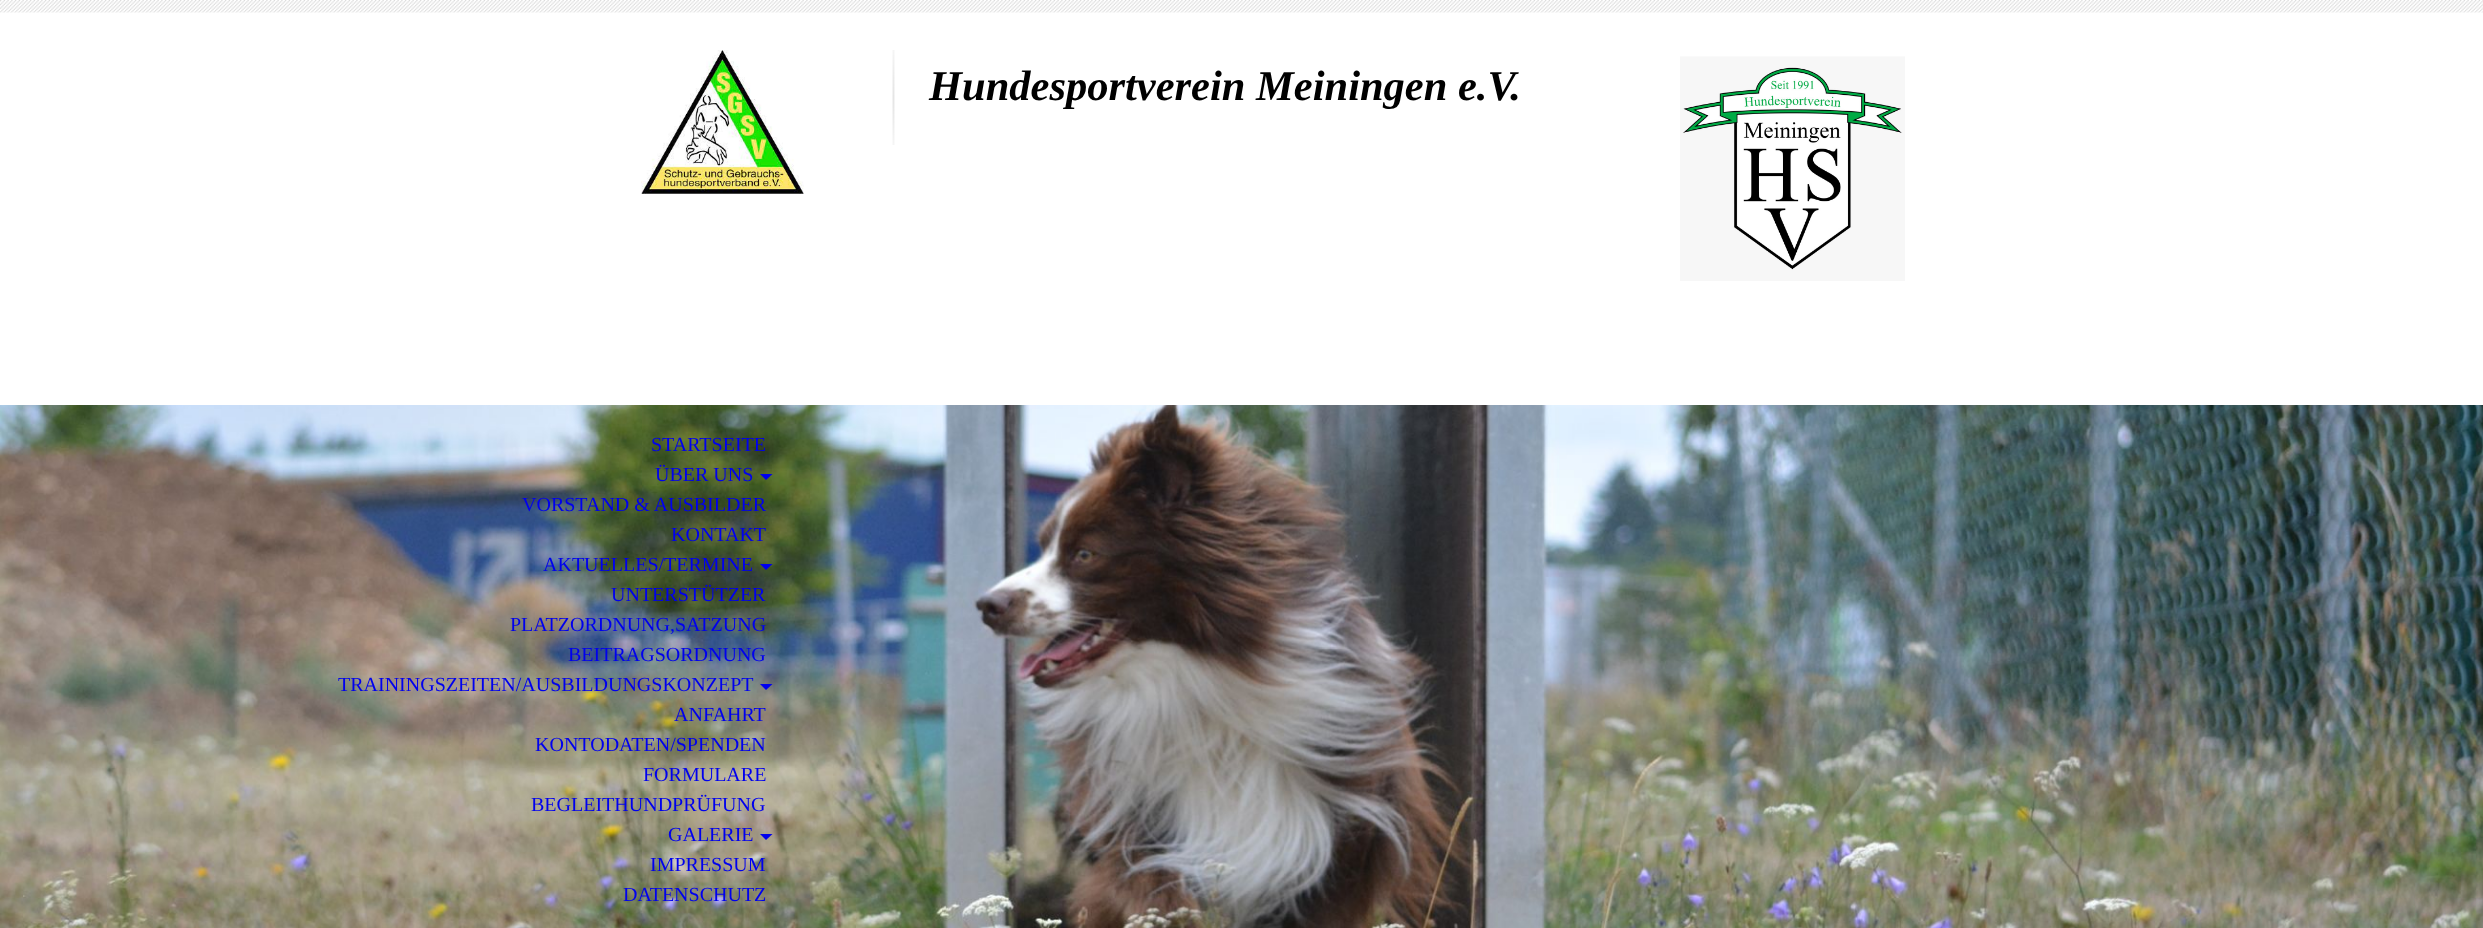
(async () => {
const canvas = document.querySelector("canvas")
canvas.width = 2483
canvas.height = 928
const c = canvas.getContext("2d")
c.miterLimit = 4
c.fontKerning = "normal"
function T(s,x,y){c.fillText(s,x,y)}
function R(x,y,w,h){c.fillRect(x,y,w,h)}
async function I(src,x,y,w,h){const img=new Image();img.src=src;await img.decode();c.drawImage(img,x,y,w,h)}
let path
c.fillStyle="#fff"
R(0,0,2483,928)
await I("1.png",0,0,2483,13)
await I("2.png",641,50,163,144)
await I("3.png",892,50,3,95)
c.font="italic bold 42.5px Liberation Serif"
c.fillStyle="#000"
T("Hundesportverein Meiningen e.V.",929,100)
await I("4.png",1680,56,225,225)
await I("5.png",0,405,2483,523)
c.font="20px Liberation Serif"
c.fillStyle="#00e"
T("STARTSEITE",651,451)
T("ÜBER UNS",655,481)
path = new Path2D("M760 474h12.5l-6.5 6z")
c.fill(path)
T("VORSTAND & AUSBILDER",522,511)
T("KONTAKT",671,541)
T("AKTUELLES/TERMINE",543,571)
path = new Path2D("M760 564h12.5l-6.5 6z")
c.fill(path)
T("UNTERSTÜTZER",611,601)
T("PLATZORDNUNG,SATZUNG",510,631)
T("BEITRAGSORDNUNG",568,661)
T("TRAININGSZEITEN/AUSBILDUNGSKONZEPT",338,691)
path = new Path2D("M760 684h12.5l-6.5 6z")
c.fill(path)
T("ANFAHRT",674,721)
T("KONTODATEN/SPENDEN",535,751)
T("FORMULARE",643,781)
T("BEGLEITHUNDPRÜFUNG",531,811)
T("GALERIE",668,841)
path = new Path2D("M760 834h12.5l-6.5 6z")
c.fill(path)
T("IMPRESSUM",650,871)
T("DATENSCHUTZ",623,901)
})()
